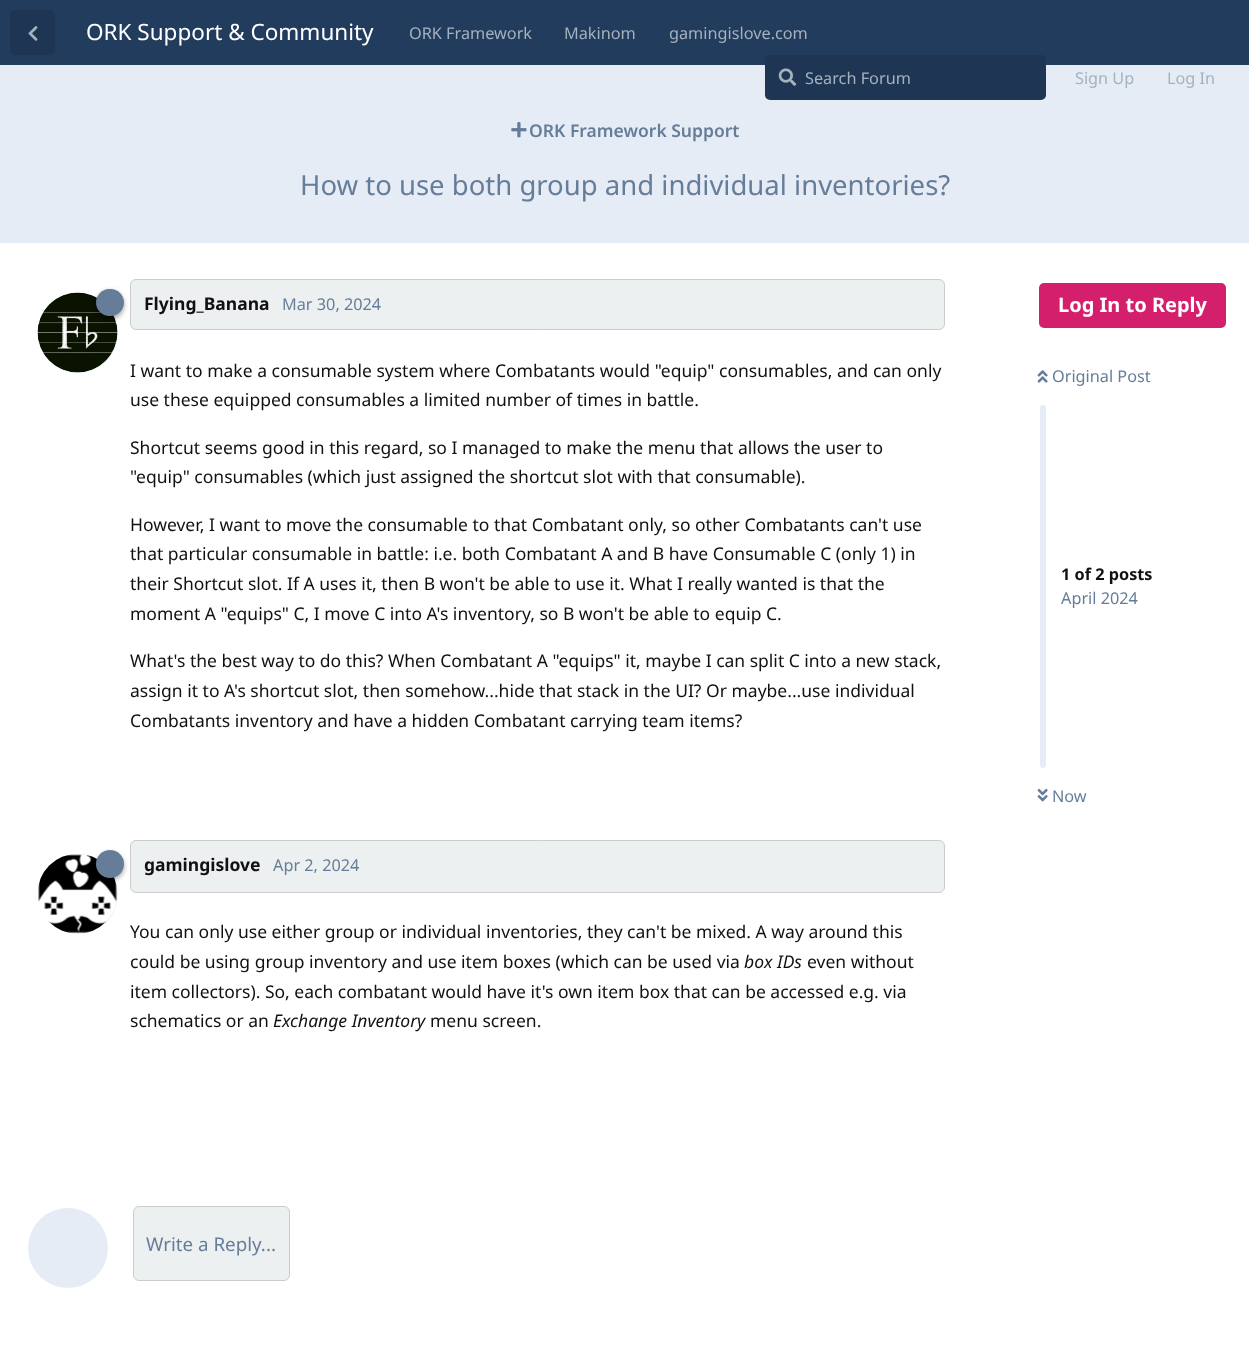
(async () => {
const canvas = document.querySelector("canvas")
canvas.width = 1249
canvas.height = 1367
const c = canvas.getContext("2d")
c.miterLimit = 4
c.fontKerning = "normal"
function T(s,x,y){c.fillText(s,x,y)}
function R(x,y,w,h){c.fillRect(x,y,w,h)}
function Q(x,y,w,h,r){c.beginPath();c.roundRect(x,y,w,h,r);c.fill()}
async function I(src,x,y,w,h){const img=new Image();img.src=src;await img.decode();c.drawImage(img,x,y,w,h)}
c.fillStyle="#fff"
R(0,0,1249,1367)
c.fillStyle="#213c5d"
R(0,0,1249,65)
c.fillStyle="#1e3654"
Q(10,10,45,45,5)
await I("1.png",28,26,10,15)
c.font="22.5px Noto Sans"
c.fillStyle="#fff"
T("ORK Support & Community",86,40)
c.font="16.25px Noto Sans"
c.fillStyle="#a6b1be"
T("ORK Framework",409,39)
T("Makinom",564,39)
T("gamingislove.com",669,39)
c.fillStyle="#e5ecf6"
R(0,65,1249,178)
c.fillStyle="#1e3654"
Q(765,55,281,45,5)
await I("2.png",778,68,19,18)
c.fillStyle="#a6b1be"
T("Search Forum",805,84)
T("Sign Up",1075,84)
T("Log In",1167,84)
await I("3.png",511,122,16,16)
c.font="600 17.5px Noto Sans"
c.fillStyle="#667d99"
T("ORK Framework Support",529,137)
c.font="27.5px Noto Sans"
T("How to use both group and individual inventories?",300,195)
c.fillStyle="#ecf0f1"
c.beginPath()
c.roundRect(130.5,279.5,814,50,5.5)
c.fill()
c.strokeStyle="#ccc"
c.stroke()
c.fillStyle="#e5ecf6"
c.beginPath()
c.arc(78,333,40,0,7)
c.fill()
await I("4.png",37,292,81,81)
c.fillStyle="#00000059"
c.filter="blur(2.5px)"
c.beginPath()
c.roundRect(96,291,28,28,14)
c.fill()
c.filter="none"
c.fillStyle="#667d99"
Q(96,289,28,27,13.5)
c.font="bold 17.5px Noto Sans"
c.fillStyle="#111"
T("Flying_Banana",144,310)
c.font="16.25px Noto Sans"
c.fillStyle="#667d99"
T("Mar 30, 2024",282,310)
c.font="17.5px Noto Sans"
c.fillStyle="#111"
T("I want to make a consumable system where Combatants would \"equip\" consumables, and can only",130,377)
T("use these equipped consumables a limited number of times in battle.",130,406)
T("Shortcut seems good in this regard, so I managed to make the menu that allows the user to",130,454)
T("\"equip\" consumables (which just assigned the shortcut slot with that consumable).",130,483)
T("However, I want to move the consumable to that Combatant only, so other Combatants can't use",130,531)
T("that particular consumable in battle: i.e. both Combatant A and B have Consumable C (only 1) in",130,560)
T("their Shortcut slot. If A uses it, then B won't be able to use it. What I really wanted is that the",130,590)
T("moment A \"equips\" C, I move C into A's inventory, so B won't be able to equip C.",130,620)
T("What's the best way to do this? When Combatant A \"equips\" it, maybe I can split C into a new stack,",130,667)
T("assign it to A's shortcut slot, then somehow...hide that stack in the UI? Or maybe...use individual",130,697)
T("Combatants inventory and have a hidden Combatant carrying team items?",130,727)
c.fillStyle="#ecf0f1"
c.beginPath()
c.roundRect(130.5,840.5,814,52,5.5)
c.fill()
c.stroke()
c.fillStyle="#e5ecf6"
c.beginPath()
c.arc(78,894,40,0,7)
c.fill()
await I("5.png",38,854,79,80)
c.fillStyle="#00000059"
c.filter="blur(2.5px)"
c.beginPath()
c.roundRect(96,853,28,27,13.5)
c.fill()
c.filter="none"
c.fillStyle="#667d99"
c.beginPath()
c.arc(110,864,14,0,7)
c.fill()
c.font="bold 17.5px Noto Sans"
c.fillStyle="#111"
T("gamingislove",144,871)
c.font="16.25px Noto Sans"
c.fillStyle="#667d99"
T("Apr 2, 2024",273,871)
c.font="17.5px Noto Sans"
c.fillStyle="#111"
T("You can only use either group or individual inventories, they can't be mixed. A way around this",130,938)
T("could be using group inventory and use item boxes (which can be used via",130,968)
c.font="italic 17.5px Noto Sans"
T("box IDs",744,968)
c.font="17.5px Noto Sans"
T("even without",807,968)
T("item collectors). So, each combatant would have it's own item box that can be accessed e.g. via",130,998)
T("schematics or an",130,1027)
c.font="italic 17.5px Noto Sans"
T("Exchange Inventory",273,1027)
c.font="17.5px Noto Sans"
T("menu screen.",430,1027)
c.fillStyle="#ecf0f1"
c.beginPath()
c.roundRect(133.5,1206.5,156,74,5.5)
c.fill()
c.stroke()
c.fillStyle="#e5ecf6"
c.beginPath()
c.arc(68,1248,40,0,7)
c.fill()
c.font="18.75px Noto Sans"
c.fillStyle="#667d99"
T("Write a Reply...",146,1251)
c.fillStyle="#d41f6c"
c.beginPath()
c.roundRect(1041,285,183,41,3)
c.fill()
c.strokeStyle="#d41f6c"
c.lineWidth=4
c.stroke()
c.font="bold 20px Noto Sans"
c.fillStyle="#fff"
T("Log In to Reply",1058,312)
await I("6.png",1037,370,11,13)
c.font="16.25px Noto Sans"
c.fillStyle="#667d99"
T("Original Post",1052,382)
c.fillStyle="#e5ecf6"
Q(1040,405,6,363,3)
c.font="bold 16.25px Noto Sans"
c.fillStyle="#111"
T("1 of 2 posts",1061,580)
c.font="16.25px Noto Sans"
c.fillStyle="#667d99"
T("April 2024",1061,604)
await I("7.png",1037,788,11,14)
T("Now",1052,802)
})()
